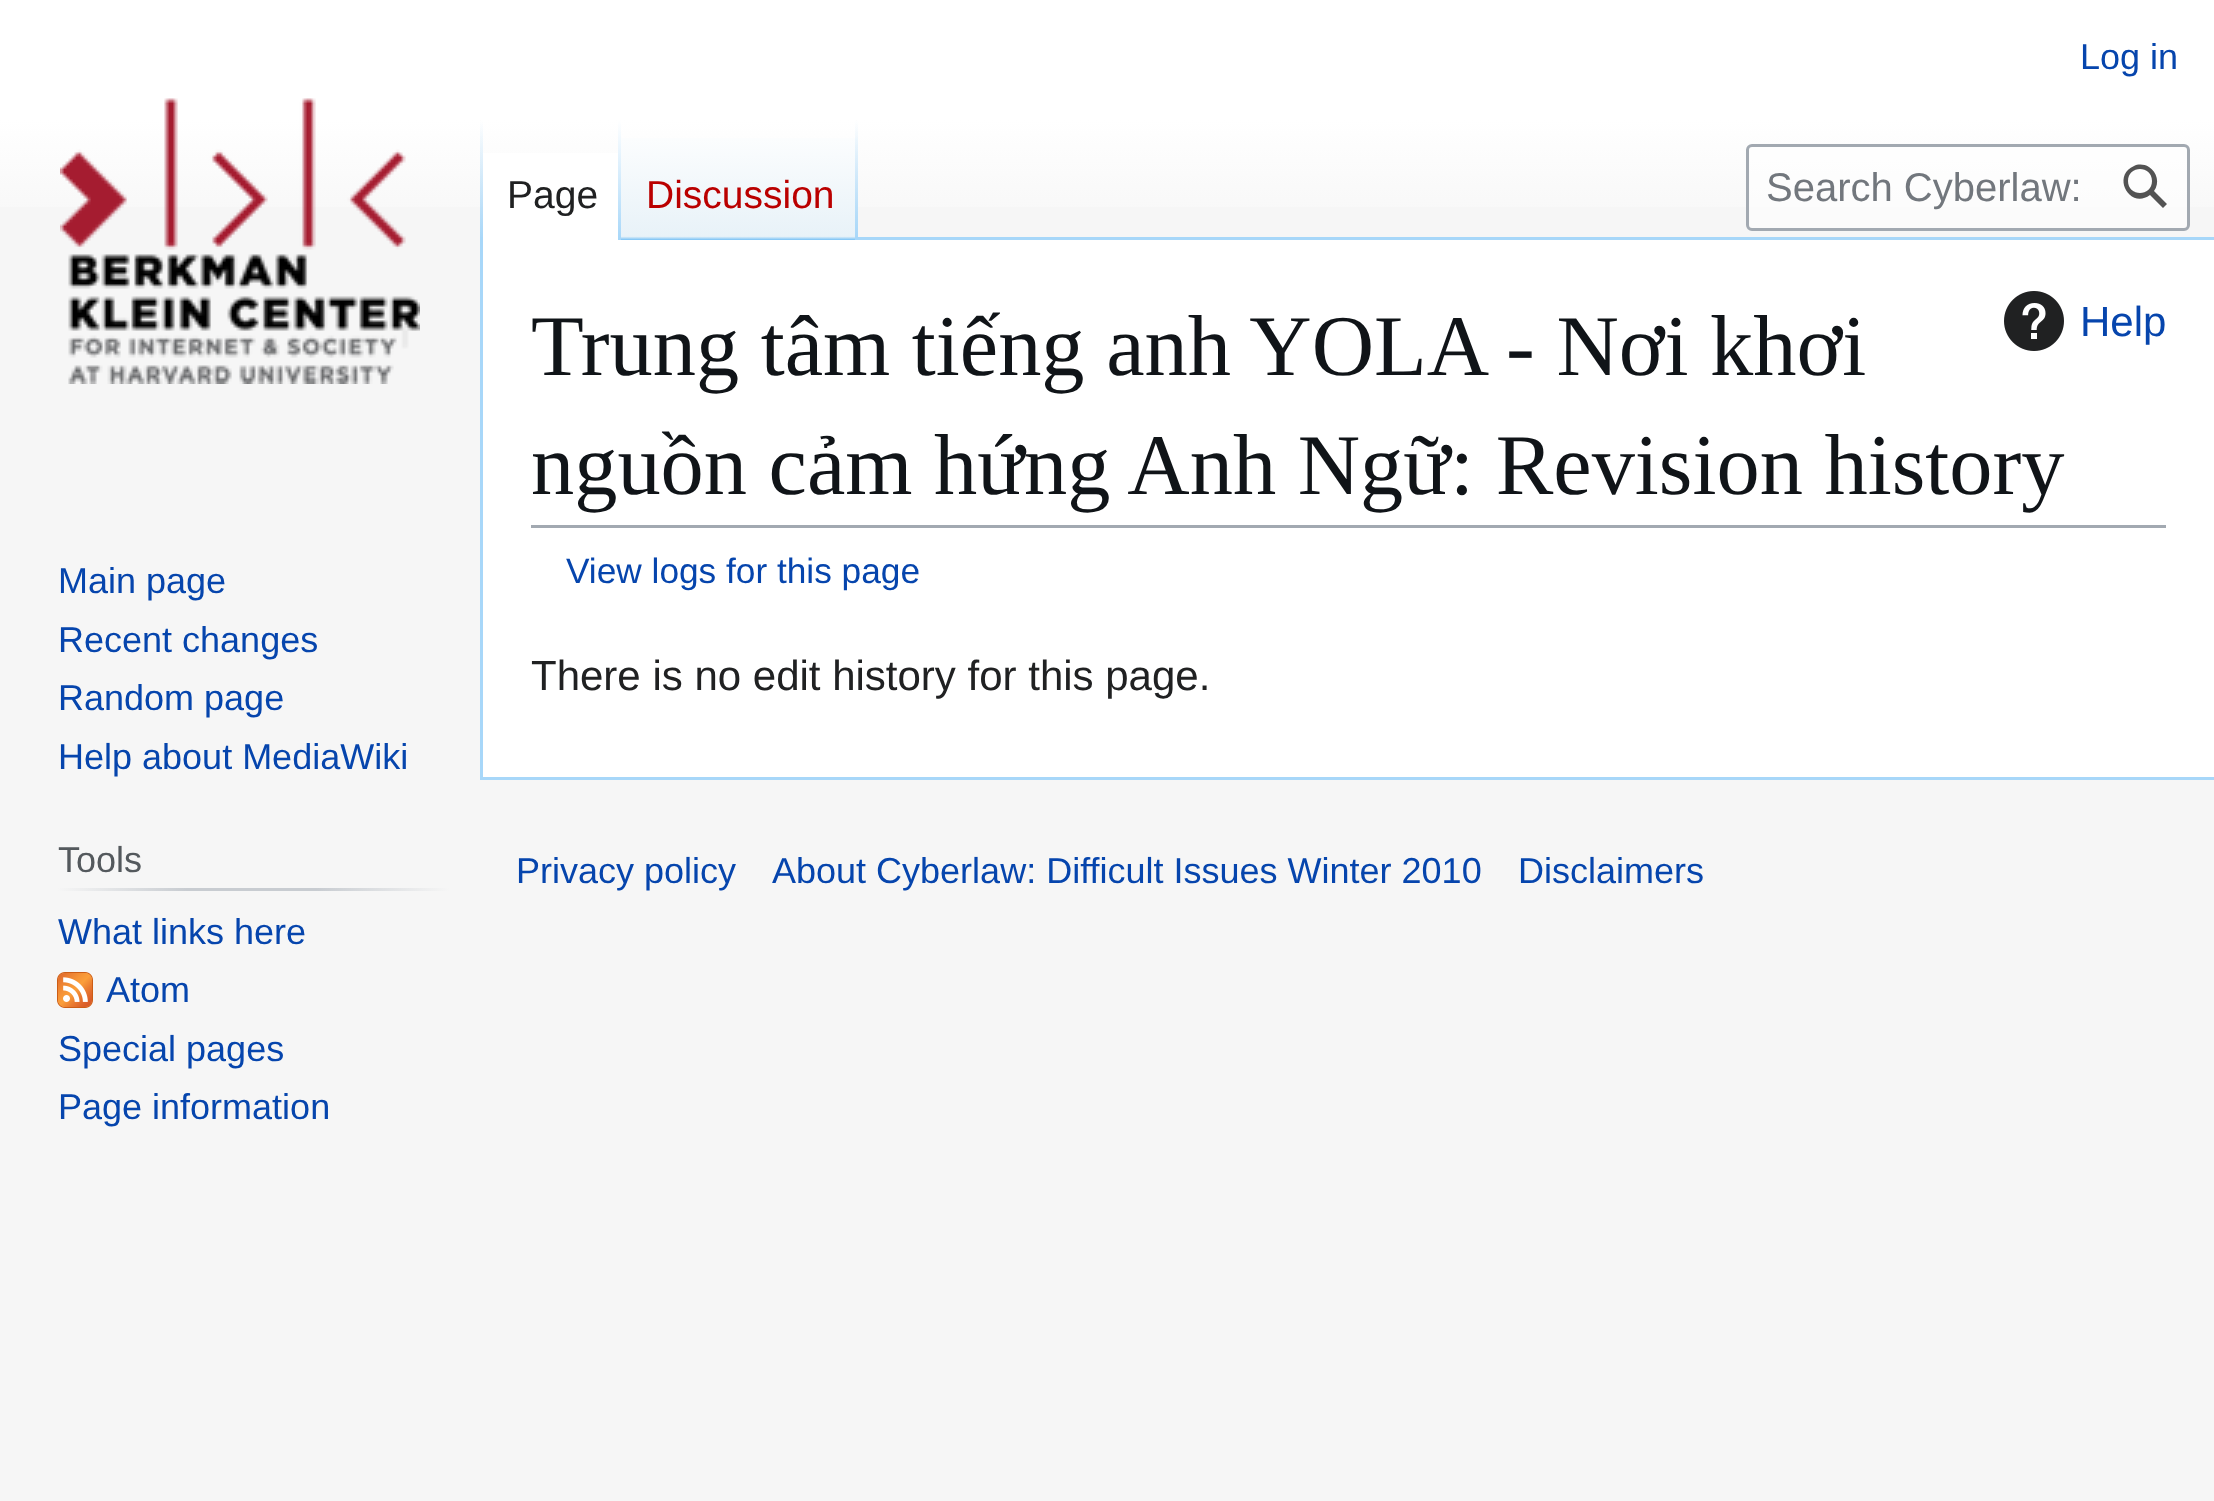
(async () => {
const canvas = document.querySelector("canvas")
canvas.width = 2214
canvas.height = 1501
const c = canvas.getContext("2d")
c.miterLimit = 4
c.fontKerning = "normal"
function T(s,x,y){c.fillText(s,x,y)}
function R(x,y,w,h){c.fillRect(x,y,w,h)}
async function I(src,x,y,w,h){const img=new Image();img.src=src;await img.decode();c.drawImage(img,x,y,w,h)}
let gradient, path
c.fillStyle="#f6f6f6"
R(0,0,2214,1501)
gradient = c.createLinearGradient(1107,0,1107,240)
gradient.addColorStop(.5,"#fff")
gradient.addColorStop(1,"#f6f6f6")
c.fillStyle = gradient
R(0,0,2214,207)
c.font="36px Liberation Sans"
c.fillStyle="#0645ad"
T("Log in",2080,69)
c.fillStyle="#a7d7f9"
R(480,777,1734,3)
R(480,237,3,543)
gradient = c.createLinearGradient(482,120,482,240)
gradient.addColorStop(0,"#a7d7f900")
gradient.addColorStop(1,"#a7d7f9")
c.fillStyle = gradient
R(480,120,3,120)
c.fillStyle="#fff"
R(483,153,135,87)
gradient = c.createLinearGradient(620,120,620,240)
gradient.addColorStop(0,"#fff")
gradient.addColorStop(1,"#a7d7f9")
c.fillStyle = gradient
R(618,120,3,120)
c.font="39px Liberation Sans"
c.fillStyle="#202122"
T("Page",507,208)
gradient = c.createLinearGradient(740,240,740,120)
gradient.addColorStop(0,"#77c1f6")
gradient.addColorStop(.03,"#e8f2f8")
gradient.addColorStop(1,"#fff")
c.fillStyle = gradient
R(621,138,237,102)
gradient = c.createLinearGradient(857,120,857,240)
gradient.addColorStop(0,"#a7d7f900")
gradient.addColorStop(1,"#a7d7f9")
c.fillStyle = gradient
R(855,120,3,120)
c.fillStyle="#ba0000"
T("Discussion",646,208)
c.fillStyle="#ffffff80"
c.beginPath()
c.roundRect(1747.5,145.5,441,84,4.5)
c.fill()
c.strokeStyle="#a2a9b1"
c.lineWidth=3
c.stroke()
c.font="40px Liberation Sans"
c.fillStyle="#72777d"
T("Search Cyberlaw:",1766,201)
c.fillStyle="#535353"
path = new Path2D("M2150 195c-20 15-39-19-16-29c4-2 10-2 15 1c8 5 11 16 5 24l13 13l-4 4zm-22-14c0 16 24 16 24 0c0-16-24-16-24 0")
c.fill(path)
await I("1.png",60,98,360,286)
c.font="36px Liberation Sans"
c.fillStyle="#0645ad"
T("Main page",58,593)
T("Recent changes",58,652)
T("Random page",58,710)
T("Help about MediaWiki",58,769)
gradient = c.createLinearGradient(57,890,450,890)
gradient.addColorStop(0,"#f6f6f6")
gradient.addColorStop(.33,"#c8ccd1")
gradient.addColorStop(.66,"#c8ccd1")
gradient.addColorStop(1,"#f6f6f6")
c.fillStyle = gradient
R(57,888,393,3)
c.fillStyle="#54595d"
T("Tools",58,872)
c.fillStyle="#0645ad"
T("What links here",58,944)
await I("2.png",57,972,36,36)
T("Atom",106,1002)
T("Special pages",58,1061)
T("Page information",58,1119)
c.fillStyle="#fff"
R(483,240,1731,537)
c.fillStyle="#a7d7f9"
R(858,237,1356,3)
c.fillStyle="#a2a9b1"
R(531,525,1635,3)
c.font="86.4px Liberation Serif"
c.fillStyle="#101418"
T("Trung tâm tiếng anh YOLA - Nơi khơi",531,375)
T("nguồn cảm hứng Anh Ngữ: Revision history",531,494)
await I("3.png",2004,291,60,60)
c.font="42px Liberation Sans"
c.fillStyle="#0645ad"
T("Help",2080,336)
c.font="35.25px Liberation Sans"
T("View logs for this page",566,583)
c.font="42px Liberation Sans"
c.fillStyle="#202122"
T("There is no edit history for this page.",531,690)
c.font="36px Liberation Sans"
c.fillStyle="#0645ad"
T("Privacy policy",516,883)
T("About Cyberlaw: Difficult Issues Winter 2010",772,883)
T("Disclaimers",1518,883)
})()
